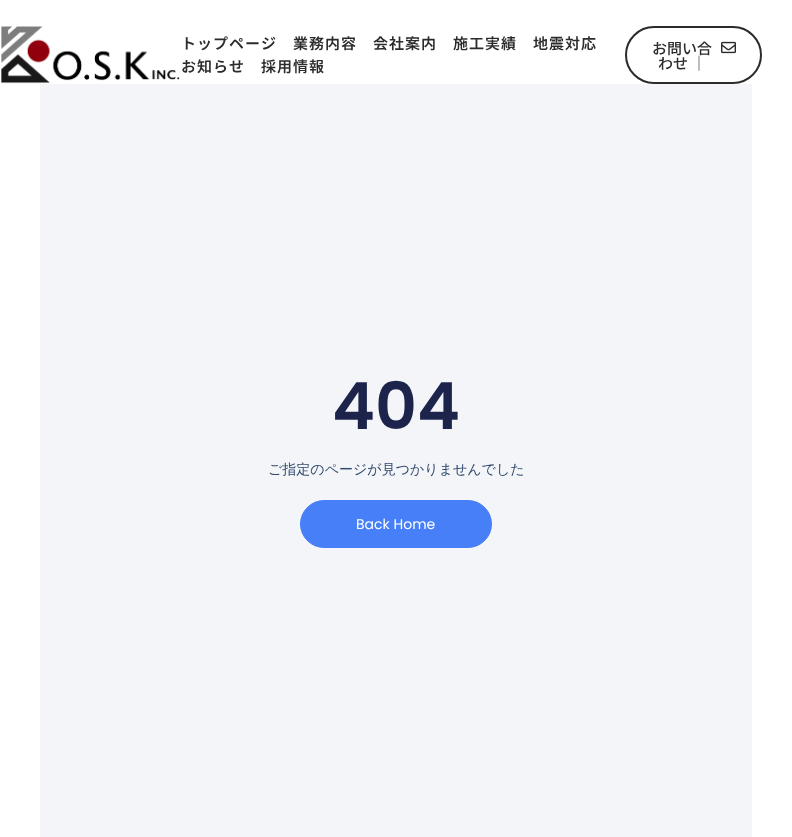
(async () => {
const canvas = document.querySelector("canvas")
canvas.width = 792
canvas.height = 837
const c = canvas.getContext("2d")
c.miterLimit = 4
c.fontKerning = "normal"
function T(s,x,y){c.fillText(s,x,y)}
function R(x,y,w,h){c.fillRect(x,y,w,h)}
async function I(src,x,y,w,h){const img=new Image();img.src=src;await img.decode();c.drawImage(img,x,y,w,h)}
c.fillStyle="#fff"
R(0,0,792,837)
await I("1.png",1,26,179,58)
c.letterSpacing="1px"
c.font="600 15px Noto Sans JP"
c.fillStyle="#2b2b2b"
T("トップページ",181,49)
T("業務内容",293,49)
T("会社案内",373,49)
T("施工実績",453,49)
T("地震対応",533,49)
T("お知らせ",181,72)
T("採用情報",261,72)
c.beginPath()
c.roundRect(626,27,135,56,28)
c.strokeStyle="#2b2b2b"
c.lineWidth=2
c.stroke()
c.letterSpacing="0px"
c.font="500 15px Noto Sans JP"
T("お問い合",652,54)
T("わせ │",658,69)
await I("2.png",721,41,15,13)
c.fillStyle="#f3f5f8"
R(40,84,712,753)
c.font="600 65px Poppins"
c.fillStyle="#1c244b"
T("404",332,429)
c.font="500 14px WenQuanYi Zen Hei"
c.fillStyle="#324a6d"
T("ご指定のページが見つかりませんでした",268,474)
c.fillStyle="#467ff7"
c.beginPath()
c.roundRect(300.5,500.5,191,47,23.5)
c.fill()
c.strokeStyle="#467ff7"
c.lineWidth=1
c.stroke()
c.font="14px Poppins"
c.fillStyle="#fff"
T("Back Home",356,529)
})()
